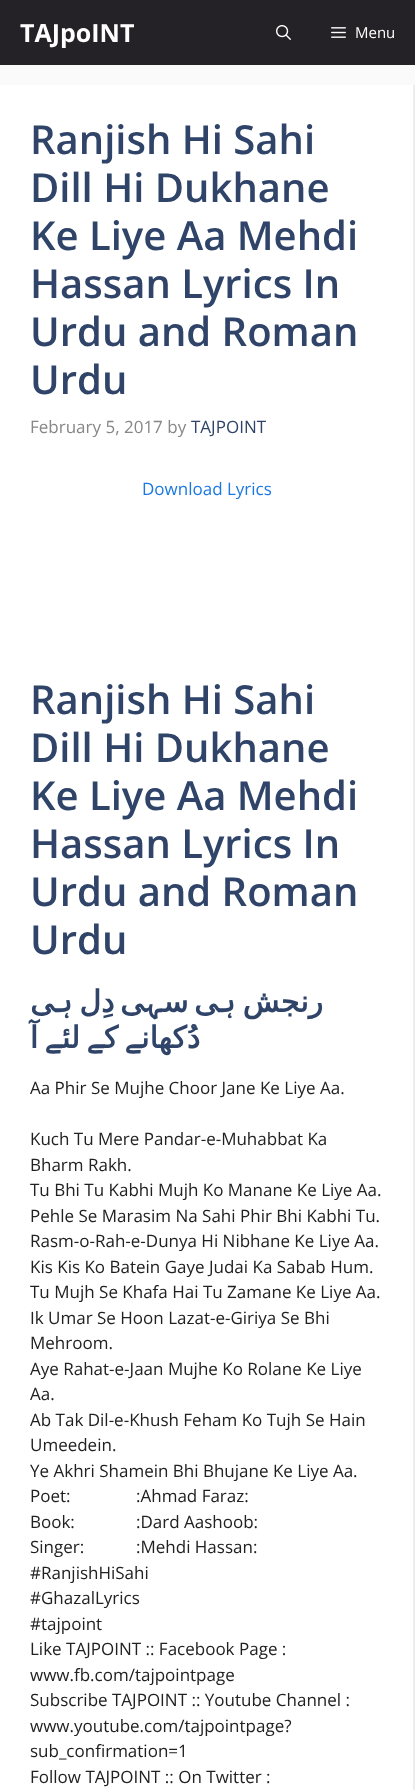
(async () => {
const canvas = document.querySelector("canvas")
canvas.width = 415
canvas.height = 1790
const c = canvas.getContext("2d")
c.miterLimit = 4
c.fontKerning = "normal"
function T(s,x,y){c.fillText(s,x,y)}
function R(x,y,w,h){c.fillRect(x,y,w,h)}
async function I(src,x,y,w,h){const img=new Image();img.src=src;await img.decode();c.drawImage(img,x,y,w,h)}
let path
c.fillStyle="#fafafa"
R(0,0,415,1790)
c.fillStyle="#242226"
R(0,0,415,65)
c.font="bold 25px Open Sans"
c.fillStyle="#fff"
T("TAJpoINT",20,42)
await I("1.png",276,25,15,15)
await I("2.png",331,27,15,11)
c.font="15px Open Sans"
T("Menu",355,38)
R(0,85,413,1705)
c.fillStyle="#ededed"
path = new Path2D("M415 85v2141l-2-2v-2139z")
c.fill(path)
c.font="600 40px Open Sans"
c.fillStyle="#2f4468"
T("Ranjish Hi Sahi",30,154)
T("Dill Hi Dukhane",30,202)
T("Ke Liye Aa Mehdi",30,250)
T("Hassan Lyrics In",30,298)
T("Urdu and Roman",30,346)
T("Urdu",30,394)
c.font="17px Open Sans"
c.fillStyle="#878787"
T("February 5, 2017 by",30,433)
c.fillStyle="#2f4468"
T("TAJPOINT",191,433)
c.fillStyle="#1b78e2"
T("Download Lyrics",142,495)
c.font="600 40px Open Sans"
c.fillStyle="#2f4468"
T("Ranjish Hi Sahi",30,714)
T("Dill Hi Dukhane",30,762)
T("Ke Liye Aa Mehdi",30,810)
T("Hassan Lyrics In",30,858)
T("Urdu and Roman",30,906)
T("Urdu",30,954)
c.direction="rtl"
c.font="bold 30px DejaVu Sans"
T("‍ی",55,1012)
c.font="600 30px Cascadia Code"
T("ہ‍",73,1012)
c.wordSpacing="-4px"
c.font="bold 30px DejaVu Sans"
T("‍ی دِل",145,1012)
c.wordSpacing="0px"
c.font="600 30px Cascadia Code"
T("‍ہ‍",162,1012)
c.wordSpacing="-4px"
c.font="bold 30px DejaVu Sans"
T("‍ی س‍",219,1012)
c.wordSpacing="0px"
c.font="600 30px Cascadia Code"
T("ہ‍",236,1012)
c.font="bold 30px DejaVu Sans"
T("رنجش",323,1012)
T("آ",38,1048)
T("لئ‍",80,1048)
T("ک‍",118,1048)
c.font="600 30px Cascadia Code"
T("‍ے",142,1048)
c.font="bold 30px DejaVu Sans"
T("دُکھان‍",200,1048)
c.font="600 30px Cascadia Code"
T("‍ے",62,1048)
T("‍ے",104,1048)
c.direction="ltr"
c.font="17px Open Sans"
c.fillStyle="#212121"
T("Aa Phir Se Mujhe Choor Jane Ke Liye Aa.",30,1094)
T("Kuch Tu Mere Pandar-e-Muhabbat Ka",30,1145)
T("Bharm Rakh.",30,1171)
T("Tu Bhi Tu Kabhi Mujh Ko Manane Ke Liye Aa.",30,1196)
T("Pehle Se Marasim Na Sahi Phir Bhi Kabhi Tu.",30,1222)
T("Rasm-o-Rah-e-Dunya Hi Nibhane Ke Liye Aa.",30,1247)
T("Kis Kis Ko Batein Gaye Judai Ka Sabab Hum.",30,1273)
T("Tu Mujh Se Khafa Hai Tu Zamane Ke Liye Aa.",30,1298)
T("Ik Umar Se Hoon Lazat-e-Giriya Se Bhi",30,1324)
T("Mehroom.",30,1349)
T("Aye Rahat-e-Jaan Mujhe Ko Rolane Ke Liye",30,1375)
T("Aa.",30,1400)
T("Ab Tak Dil-e-Khush Feham Ko Tujh Se Hain",30,1426)
T("Umeedein.",30,1451)
T("Ye Akhri Shamein Bhi Bhujane Ke Liye Aa.",30,1477)
T("Poet:",30,1502)
T(":Ahmad Faraz:",136,1502)
T("Book:",30,1528)
T(":Dard Aashoob:",136,1528)
T("Singer:",30,1553)
T(":Mehdi Hassan:",136,1553)
T("#RanjishHiSahi",30,1579)
T("#GhazalLyrics",30,1604)
T("#tajpoint",30,1630)
T("Like TAJPOINT :: Facebook Page :",30,1655)
T("www.fb.com/tajpointpage",30,1681)
T("Subscribe TAJPOINT :: Youtube Channel :",30,1706)
T("www.youtube.com/tajpointpage?",30,1732)
T("sub_confirmation=1",30,1757)
T("Follow TAJPOINT :: On Twitter :",30,1783)
})()
